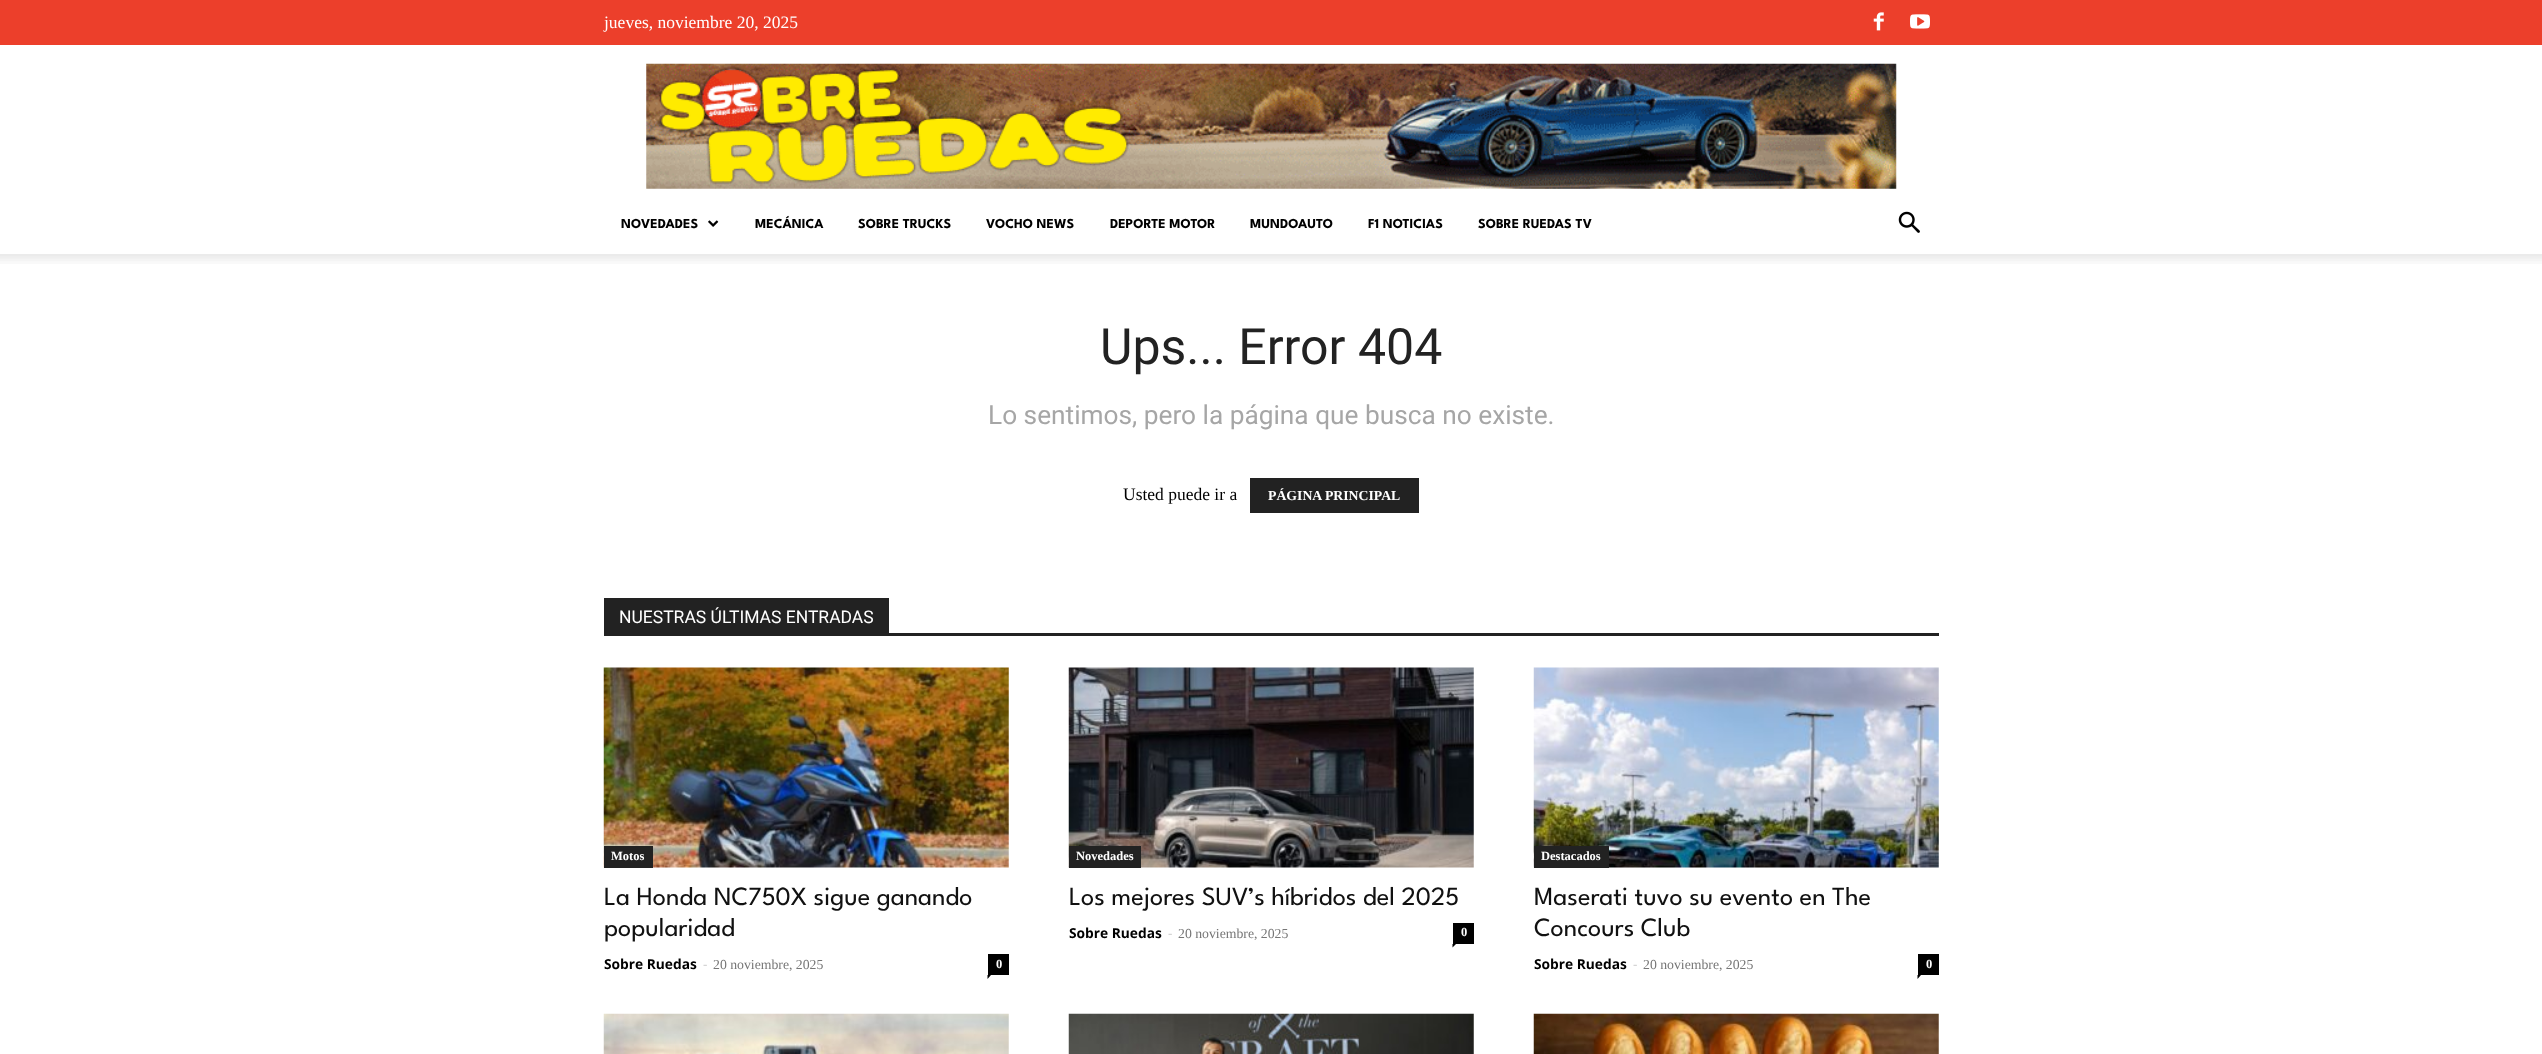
(async () => {
const canvas = document.querySelector("canvas")
canvas.width = 2542
canvas.height = 1054
const c = canvas.getContext("2d")
c.miterLimit = 4
c.fontKerning = "normal"
function T(s,x,y){c.fillText(s,x,y)}
function R(x,y,w,h){c.fillRect(x,y,w,h)}
async function I(src,x,y,w,h){const img=new Image();img.src=src;await img.decode();c.drawImage(img,x,y,w,h)}
let path
c.fillStyle="#fff"
R(0,0,2542,1054)
c.fillStyle="#ec3f2b"
R(0,0,2542,45)
c.font="17.5px Liberation Serif"
c.fillStyle="#fff"
T("jueves, noviembre 20, 2025",604,28)
await I("1.png",1873,12,11,19)
await I("2.png",1910,14,20,15)
await I("3.png",646,63,1251,126)
c.font="bold 13.75px League Spartan"
c.fillStyle="#000"
T("NOVEDADES",621,228)
await I("4.png",708,220,11,7)
T("MECÁNICA",755,228)
T("SOBRE TRUCKS",858,228)
T("VOCHO NEWS",986,228)
T("DEPORTE MOTOR",1110,228)
T("MUNDOAUTO",1250,228)
T("F1 NOTICIAS",1368,228)
T("SOBRE RUEDAS TV",1478,228)
await I("5.png",1898,211,22,22)
await I("6.png",0,254,2542,10)
c.font="50px Roboto"
c.fillStyle="#222"
T("Ups... Error 404",1100,364)
c.font="26.25px Roboto"
c.fillStyle="#a6a6a6"
T("Lo sentimos, pero la página que busca no existe.",988,424)
c.font="17.5px Liberation Serif"
c.fillStyle="#000"
T("Usted puede ir a",1123,500)
c.fillStyle="#222"
R(1250,478,169,35)
c.font="bold 13.75px Liberation Serif"
c.fillStyle="#fff"
T("PÁGINA PRINCIPAL",1268,500)
c.fillStyle="#222"
R(604,633,1335,3)
R(604,598,285,35)
c.font="17.5px Roboto"
c.fillStyle="#fff"
T("NUESTRAS ÚLTIMAS ENTRADAS",619,623)
await I("7.png",603,667,406,201)
c.fillStyle="#222"
R(604,846,49,22)
c.font="bold 12.5px Liberation Serif"
c.fillStyle="#fff"
T("Motos",611,860)
c.font="26.25px League Spartan"
c.fillStyle="#111"
T("La Honda NC750X sigue ganando",604,905)
T("popularidad",604,936)
c.font="bold 13.75px Open Sans"
c.fillStyle="#000"
T("Sobre Ruedas",604,969)
c.font="13.75px Open Sans"
c.fillStyle="#ccc"
T("-",703,969)
c.font="13.75px Liberation Serif"
c.fillStyle="#767676"
T("20 noviembre, 2025",713,969)
c.fillStyle="#000"
R(988,954,21,21)
c.font="bold 12.5px Liberation Serif"
c.fillStyle="#fff"
T("0",996,968)
c.fillStyle="#000"
path = new Path2D("M987.5 975h3.5l-3.5 4z")
c.fill(path)
await I("8.png",1068,667,406,201)
c.fillStyle="#222"
R(1069,846,72,22)
c.fillStyle="#fff"
T("Novedades",1076,860)
c.font="26.25px League Spartan"
c.fillStyle="#111"
T("Los mejores SUV’s híbridos del 2025",1069,905)
c.font="bold 13.75px Open Sans"
c.fillStyle="#000"
T("Sobre Ruedas",1069,938)
c.font="13.75px Open Sans"
c.fillStyle="#ccc"
T("-",1168,938)
c.font="13.75px Liberation Serif"
c.fillStyle="#767676"
T("20 noviembre, 2025",1178,938)
c.fillStyle="#000"
R(1453,923,21,21)
c.font="bold 12.5px Liberation Serif"
c.fillStyle="#fff"
T("0",1461,936)
c.fillStyle="#000"
path = new Path2D("M1452.5 944h3.5l-3.5 3.5z")
c.fill(path)
await I("9.png",1533,667,406,201)
c.fillStyle="#222"
R(1534,846,75,22)
c.fillStyle="#fff"
T("Destacados",1541,860)
c.font="26.25px League Spartan"
c.fillStyle="#111"
T("Maserati tuvo su evento en The",1534,905)
T("Concours Club",1534,936)
c.font="bold 13.75px Open Sans"
c.fillStyle="#000"
T("Sobre Ruedas",1534,969)
c.font="13.75px Open Sans"
c.fillStyle="#ccc"
T("-",1633,969)
c.font="13.75px Liberation Serif"
c.fillStyle="#767676"
T("20 noviembre, 2025",1643,969)
c.fillStyle="#000"
R(1918,954,21,21)
c.font="bold 12.5px Liberation Serif"
c.fillStyle="#fff"
T("0",1926,968)
c.fillStyle="#000"
path = new Path2D("M1917.5 975h3.5l-3.5 4z")
c.fill(path)
await I("10.png",603,1013,406,41)
await I("11.png",1068,1013,406,41)
await I("12.png",1533,1013,406,41)
})()
